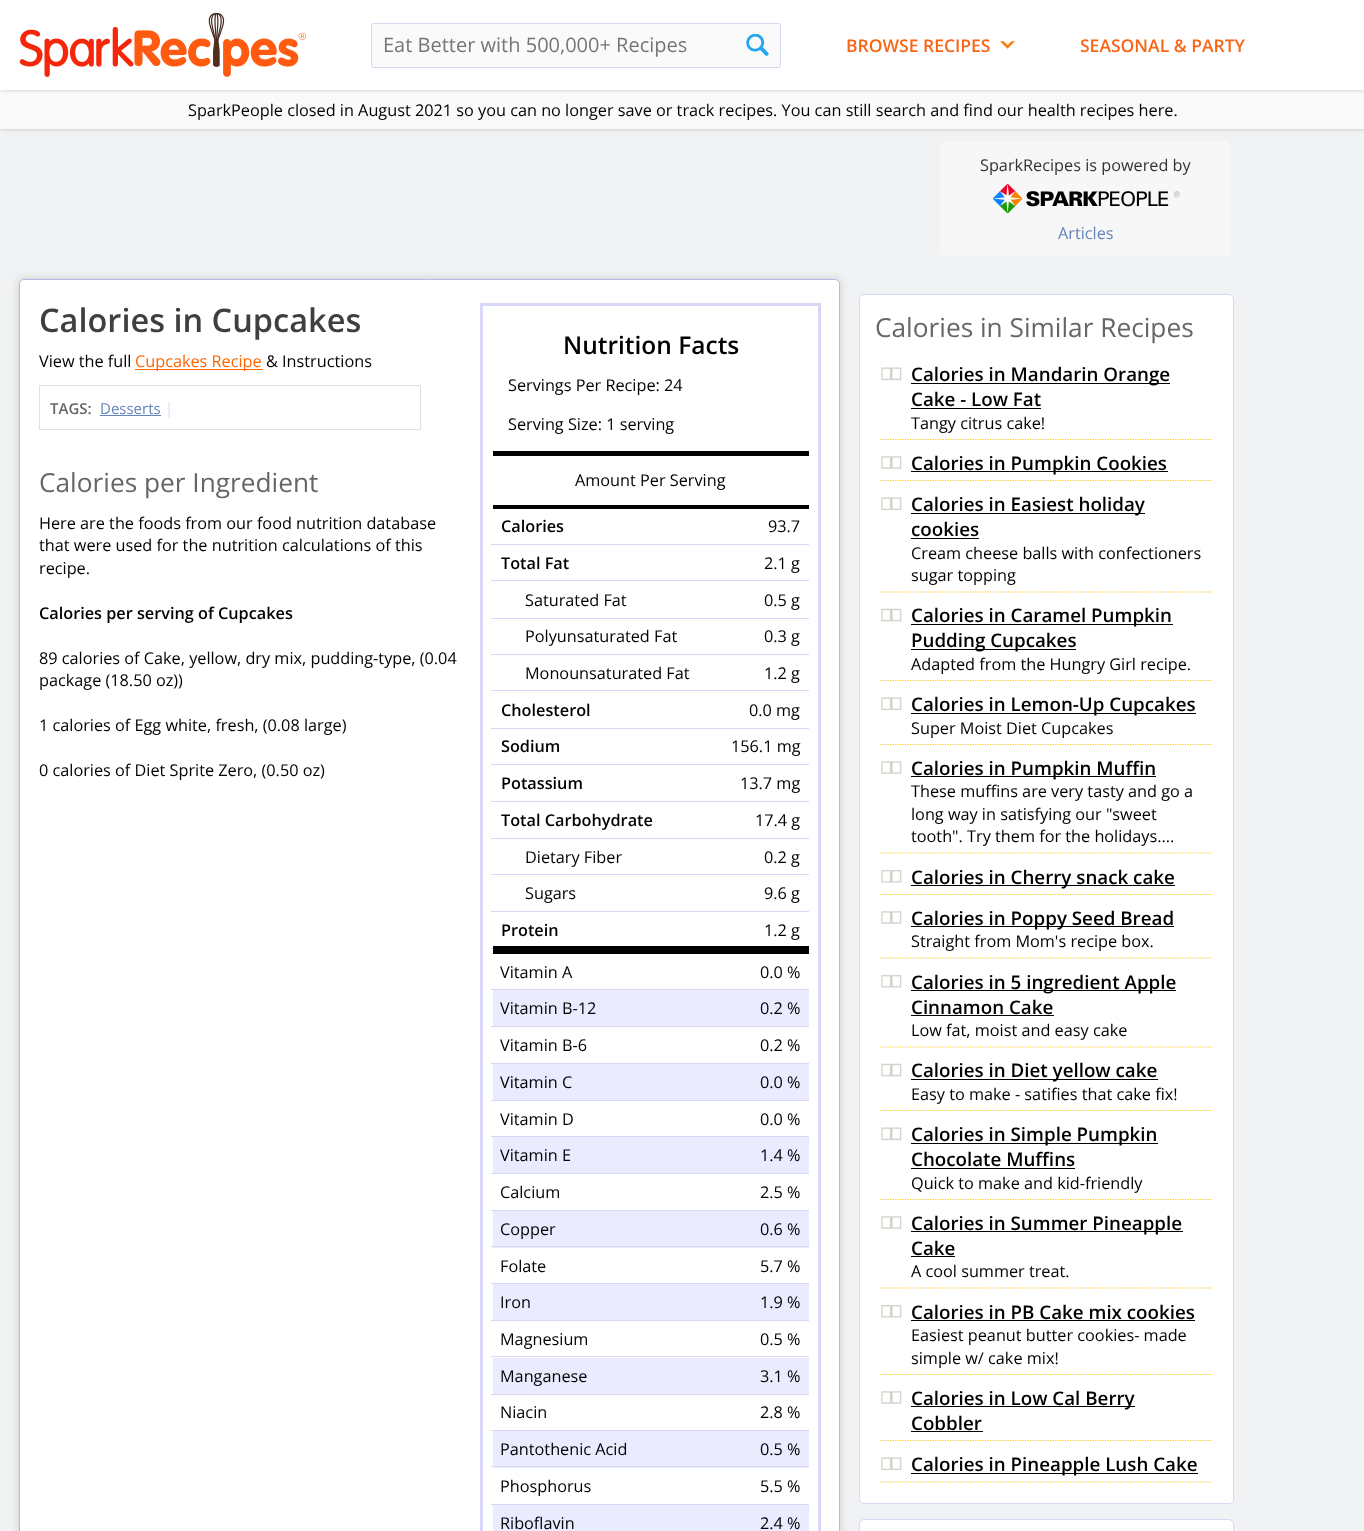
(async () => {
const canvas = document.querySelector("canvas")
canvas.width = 1364
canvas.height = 1531
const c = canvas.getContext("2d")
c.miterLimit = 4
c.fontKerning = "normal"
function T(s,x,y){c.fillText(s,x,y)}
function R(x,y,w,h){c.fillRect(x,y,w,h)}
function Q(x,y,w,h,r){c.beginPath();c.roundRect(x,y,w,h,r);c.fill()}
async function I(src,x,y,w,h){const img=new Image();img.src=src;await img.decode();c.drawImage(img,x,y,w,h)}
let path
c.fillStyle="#f1f2f3"
R(0,0,1364,1531)
c.fillStyle="#00000033"
c.filter="blur(2px)"
c.beginPath()
c.rect(0,0,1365,129)
c.fill()
c.filter="none"
c.fillStyle="#fafafa"
R(0,90,1364,39)
c.fillStyle="#00000033"
c.filter="blur(2px)"
c.beginPath()
c.rect(0,0,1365,90)
c.fill()
c.filter="none"
c.fillStyle="#fff"
R(0,0,1364,90)
await I("1.png",19,13,287,64)
c.fillStyle="#fafafa"
c.beginPath()
c.roundRect(371.5,23.5,409,44,2)
c.fill()
c.strokeStyle="#d3dbef"
c.stroke()
c.font="20px Open Sans"
c.fillStyle="#757575"
T("Eat Better with 500,000+ Recipes",383,52)
await I("2.png",746,34,23,22)
c.font="600 17.5px Open Sans"
c.fillStyle="#f86514"
T("BROWSE RECIPES",846,52)
await I("3.png",1000,41,15,8)
T("SEASONAL & PARTY",1080,52)
c.font="16.25px Open Sans"
c.fillStyle="#000"
T("SparkPeople closed in August 2021 so you can no longer save or track recipes. You can still search and find our health recipes here.",188,116)
c.fillStyle="#f8f7f7"
Q(940,141,291,115,5)
c.fillStyle="#333"
T("SparkRecipes is powered by",980,171)
await I("4.png",993,184,187,30)
c.fillStyle="#6384bd"
T("Articles",1058,239)
c.fillStyle="#ccc"
c.filter="blur(4px)"
c.beginPath()
c.roundRect(19,279,821,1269,5)
c.fill()
c.filter="none"
c.fillStyle="#fff"
c.beginPath()
c.roundRect(19.5,279.5,820,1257,4.5)
c.fill()
c.strokeStyle="#b6bbe6"
c.stroke()
c.font="600 32.5px Open Sans"
c.fillStyle="#3f3f3f"
T("Calories in Cupcakes",39,332)
c.font="16.25px Open Sans"
c.fillStyle="#000"
T("View the full",39,367)
c.fillStyle="#f60"
R(135,369,128,1)
T("Cupcakes Recipe",135,367)
c.fillStyle="#000"
T("& Instructions",266,367)
c.strokeStyle="#d7d7f9"
c.lineWidth=3
c.strokeRect(481.5,304.5,338,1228)
c.font="600 24.5px Open Sans"
T("Nutrition Facts",563,354)
c.font="16.25px Open Sans"
T("Servings Per Recipe: 24",508,391)
T("Serving Size: 1 serving",508,430)
R(493,451,316,5)
T("Amount Per Serving",575,486)
R(493,505,316,4)
R(493,946,316,8)
c.font="600 16.25px Open Sans"
T("Calories",501,532)
c.fillStyle="#d7d7f9"
R(491,544,318,1)
c.font="16.25px Open Sans"
c.fillStyle="#000"
T("93.7",768,532)
c.font="600 16.25px Open Sans"
T("Total Fat",501,569)
c.fillStyle="#d7d7f9"
R(491,580,318,1)
c.font="16.25px Open Sans"
c.fillStyle="#000"
T("2.1 g",764,569)
T("Saturated Fat",525,606)
c.fillStyle="#d7d7f9"
R(491,618,318,1)
c.fillStyle="#000"
T("0.5 g",764,606)
T("Polyunsaturated Fat",525,642)
c.fillStyle="#d7d7f9"
R(491,654,318,1)
c.fillStyle="#000"
T("0.3 g",764,642)
T("Monounsaturated Fat",525,679)
c.fillStyle="#d7d7f9"
R(491,690,318,1)
c.fillStyle="#000"
T("1.2 g",764,679)
c.font="600 16.25px Open Sans"
T("Cholesterol",501,716)
c.fillStyle="#d7d7f9"
R(491,728,318,1)
c.font="16.25px Open Sans"
c.fillStyle="#000"
T("0.0 mg",749,716)
c.font="600 16.25px Open Sans"
T("Sodium",501,752)
c.fillStyle="#d7d7f9"
R(491,764,318,1)
c.font="16.25px Open Sans"
c.fillStyle="#000"
T("156.1 mg",731,752)
c.font="600 16.25px Open Sans"
T("Potassium",501,789)
c.fillStyle="#d7d7f9"
R(491,801,318,1)
c.font="16.25px Open Sans"
c.fillStyle="#000"
T("13.7 mg",740,789)
c.font="600 16.25px Open Sans"
T("Total Carbohydrate",501,826)
c.fillStyle="#d7d7f9"
R(491,838,318,1)
c.font="16.25px Open Sans"
c.fillStyle="#000"
T("17.4 g",755,826)
T("Dietary Fiber",525,863)
c.fillStyle="#d7d7f9"
R(491,874,318,1)
c.fillStyle="#000"
T("0.2 g",764,863)
T("Sugars",525,899)
c.fillStyle="#d7d7f9"
R(491,911,318,1)
c.fillStyle="#000"
T("9.6 g",764,899)
c.fillStyle="#d7d7f9"
R(491,948,2,1)
c.font="600 16.25px Open Sans"
c.fillStyle="#000"
T("Protein",501,936)
c.font="16.25px Open Sans"
T("1.2 g",764,936)
T("Vitamin A",500,978)
c.fillStyle="#d7d7f9"
R(491,989,318,1)
c.fillStyle="#000"
T("0.0 %",760,978)
c.fillStyle="#ebebff"
R(493,990,316,36)
c.fillStyle="#000"
T("Vitamin B-12",500,1014)
c.fillStyle="#d7d7f9"
R(491,1026,318,1)
c.fillStyle="#000"
T("0.2 %",760,1014)
T("Vitamin B-6",500,1051)
c.fillStyle="#d7d7f9"
R(491,1063,318,1)
c.fillStyle="#000"
T("0.2 %",760,1051)
c.fillStyle="#ebebff"
R(493,1064,316,36)
c.fillStyle="#000"
T("Vitamin C",500,1088)
c.fillStyle="#d7d7f9"
R(491,1100,318,1)
c.fillStyle="#000"
T("0.0 %",760,1088)
T("Vitamin D",500,1125)
c.fillStyle="#d7d7f9"
R(491,1136,318,1)
c.fillStyle="#000"
T("0.0 %",760,1125)
c.fillStyle="#ebebff"
R(493,1137,316,36)
c.fillStyle="#000"
T("Vitamin E",500,1161)
c.fillStyle="#d7d7f9"
R(491,1173,318,1)
c.fillStyle="#000"
T("1.4 %",760,1161)
T("Calcium",500,1198)
c.fillStyle="#d7d7f9"
R(491,1210,318,1)
c.fillStyle="#000"
T("2.5 %",760,1198)
c.fillStyle="#ebebff"
R(493,1211,316,37)
c.fillStyle="#000"
T("Copper",500,1235)
c.fillStyle="#d7d7f9"
R(491,1246,318,1)
c.fillStyle="#000"
T("0.6 %",760,1235)
T("Folate",500,1272)
c.fillStyle="#d7d7f9"
R(491,1283,318,1)
c.fillStyle="#000"
T("5.7 %",760,1272)
c.fillStyle="#ebebff"
R(493,1284,316,36)
c.fillStyle="#000"
T("Iron",500,1308)
c.fillStyle="#d7d7f9"
R(491,1320,318,1)
c.fillStyle="#000"
T("1.9 %",760,1308)
T("Magnesium",500,1345)
c.fillStyle="#d7d7f9"
R(491,1356,318,1)
c.fillStyle="#000"
T("0.5 %",760,1345)
c.fillStyle="#ebebff"
R(493,1358,316,36)
c.fillStyle="#000"
T("Manganese",500,1382)
c.fillStyle="#d7d7f9"
R(491,1394,318,1)
c.fillStyle="#000"
T("3.1 %",760,1382)
T("Niacin",500,1418)
c.fillStyle="#d7d7f9"
R(491,1430,318,1)
c.fillStyle="#000"
T("2.8 %",760,1418)
c.fillStyle="#ebebff"
R(493,1431,316,37)
c.fillStyle="#000"
T("Pantothenic Acid",500,1455)
c.fillStyle="#d7d7f9"
R(491,1466,318,1)
c.fillStyle="#000"
T("0.5 %",760,1455)
T("Phosphorus",500,1492)
c.fillStyle="#d7d7f9"
R(491,1504,318,1)
c.fillStyle="#000"
T("5.5 %",760,1492)
c.fillStyle="#ebebff"
R(493,1505,316,26)
c.fillStyle="#000"
T("Riboflavin",500,1529)
T("2.4 %",760,1529)
c.strokeStyle="#e0e0e0"
c.lineWidth=1
c.strokeRect(39.5,385.5,381,44)
c.font="600 15px Open Sans"
c.fillStyle="#666"
T("TAGS:",50,414)
c.font="15px Open Sans"
c.fillStyle="#6384bd"
T("Desserts",100,414)
R(100,415,61,1)
c.fillStyle="#d7d7f9"
T("|",165,414)
c.font="26.25px Open Sans"
c.fillStyle="#666"
T("Calories per Ingredient",39,492)
c.font="16.25px Open Sans"
c.fillStyle="#000"
T("Here are the foods from our food nutrition database",39,529)
T("that were used for the nutrition calculations of this",39,551)
T("recipe.",39,574)
c.font="600 16.25px Open Sans"
T("Calories per serving of Cupcakes",39,619)
c.font="16.25px Open Sans"
T("89 calories of Cake, yellow, dry mix, pudding-type, (0.04",39,664)
T("package (18.50 oz))",39,686)
T("1 calories of Egg white, fresh, (0.08 large)",39,731)
T("0 calories of Diet Sprite Zero, (0.50 oz)",39,776)
c.fillStyle="#fff"
c.beginPath()
c.roundRect(859.5,294.5,374,1209,4.5)
c.fill()
c.strokeStyle="#d7d7f9"
c.stroke()
c.font="26.25px Open Sans"
c.fillStyle="#666"
T("Calories in Similar Recipes",875,337)
await I("5.png",881,367,21,14)
path = new Path2D("M880 439.5h332.5")
c.strokeStyle="#f4c92d"
c.lineWidth=1.2
c.setLineDash([1.25,1.25])
c.stroke(path)
c.fillStyle="#000"
R(911,383,259,1)
c.font="600 18.75px Open Sans"
T("Calories in Mandarin Orange",911,381)
T("Cake - Low Fat",911,406)
R(911,408,130,1)
c.font="16.25px Open Sans"
T("Tangy citrus cake!",911,429)
await I("6.png",881,456,21,13)
path = new Path2D("M880 480.5h332.5")
c.stroke(path)
R(911,471,257,1)
c.font="600 18.75px Open Sans"
T("Calories in Pumpkin Cookies",911,470)
await I("5.png",881,497,21,14)
path = new Path2D("M880 592h332.5")
c.stroke(path)
R(911,513,234,1)
T("Calories in Easiest holiday",911,511)
T("cookies",911,536)
R(911,538,68,1)
c.font="16.25px Open Sans"
T("Cream cheese balls with confectioners",911,559)
T("sugar topping",911,581)
await I("7.png",881,608,21,14)
path = new Path2D("M880 680.5h332.5")
c.stroke(path)
R(911,624,262,1)
c.font="600 18.75px Open Sans"
T("Calories in Caramel Pumpkin",911,622)
R(911,649,165,1)
T("Pudding Cupcakes",911,647)
c.font="16.25px Open Sans"
T("Adapted from the Hungry Girl recipe.",911,670)
await I("5.png",881,697,21,14)
path = new Path2D("M880 744.5h332.5")
c.stroke(path)
R(911,713,285,1)
c.font="600 18.75px Open Sans"
T("Calories in Lemon-Up Cupcakes",911,711)
c.font="16.25px Open Sans"
T("Super Moist Diet Cupcakes",911,734)
await I("6.png",881,761,21,13)
path = new Path2D("M880 853h332.5")
c.stroke(path)
R(911,776,245,1)
c.font="600 18.75px Open Sans"
T("Calories in Pumpkin Muffin",911,775)
c.font="16.25px Open Sans"
T("These muffins are very tasty and go a",911,797)
T("long way in satisfying our \"sweet",911,820)
T("tooth\". Try them for the holidays....",911,842)
await I("8.png",881,870,21,13)
path = new Path2D("M880 894.5h332.5")
c.stroke(path)
R(911,885,264,1)
c.font="600 18.75px Open Sans"
T("Calories in Cherry snack cake",911,884)
await I("6.png",881,911,21,13)
path = new Path2D("M880 958h332.5")
c.stroke(path)
R(911,926,263,1)
T("Calories in Poppy Seed Bread",911,925)
c.font="16.25px Open Sans"
T("Straight from Mom's recipe box.",911,947)
await I("8.png",881,975,21,13)
path = new Path2D("M880 1047h332.5")
c.stroke(path)
R(911,990,265,1)
c.font="600 18.75px Open Sans"
T("Calories in 5 ingredient Apple",911,989)
T("Cinnamon Cake",911,1014)
R(911,1015,143,1)
c.font="16.25px Open Sans"
T("Low fat, moist and easy cake",911,1036)
await I("7.png",881,1063,21,14)
path = new Path2D("M880 1110.5h332.5")
c.stroke(path)
R(911,1079,247,1)
c.font="600 18.75px Open Sans"
T("Calories in Diet yellow cake",911,1077)
c.font="16.25px Open Sans"
T("Easy to make - satifies that cake fix!",911,1100)
await I("5.png",881,1127,21,14)
path = new Path2D("M880 1199.5h332.5")
c.stroke(path)
R(911,1143,247,1)
c.font="600 18.75px Open Sans"
T("Calories in Simple Pumpkin",911,1141)
T("Chocolate Muffins",911,1166)
R(911,1168,164,1)
c.font="16.25px Open Sans"
T("Quick to make and kid-friendly",911,1189)
await I("6.png",881,1216,21,13)
path = new Path2D("M880 1288h332.5")
c.stroke(path)
R(911,1231,272,1)
c.font="600 18.75px Open Sans"
T("Calories in Summer Pineapple",911,1230)
T("Cake",911,1255)
R(911,1256,44,1)
c.font="16.25px Open Sans"
T("A cool summer treat.",911,1277)
await I("8.png",881,1305,21,13)
path = new Path2D("M880 1374.5h332.5")
c.stroke(path)
c.font="600 18.75px Open Sans"
T("Calories in PB Cake mix cookies",911,1319)
R(911,1320,284,1)
c.font="16.25px Open Sans"
T("Easiest peanut butter cookies- made",911,1341)
T("simple w/ cake mix!",911,1364)
await I("6.png",881,1391,21,13)
path = new Path2D("M880 1440.5h332.5")
c.stroke(path)
R(911,1406,224,1)
c.font="600 18.75px Open Sans"
T("Calories in Low Cal Berry",911,1405)
T("Cobbler",911,1430)
R(911,1431,72,1)
await I("5.png",881,1457,21,14)
path = new Path2D("M880 1482h332.5")
c.stroke(path)
R(911,1473,287,1)
T("Calories in Pineapple Lush Cake",911,1471)
c.fillStyle="#fff"
c.beginPath()
c.roundRect(859.5,1519.5,374,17,4.5)
c.fill()
c.strokeStyle="#d7d7f9"
c.lineWidth=1
c.setLineDash([])
c.stroke()
})()
